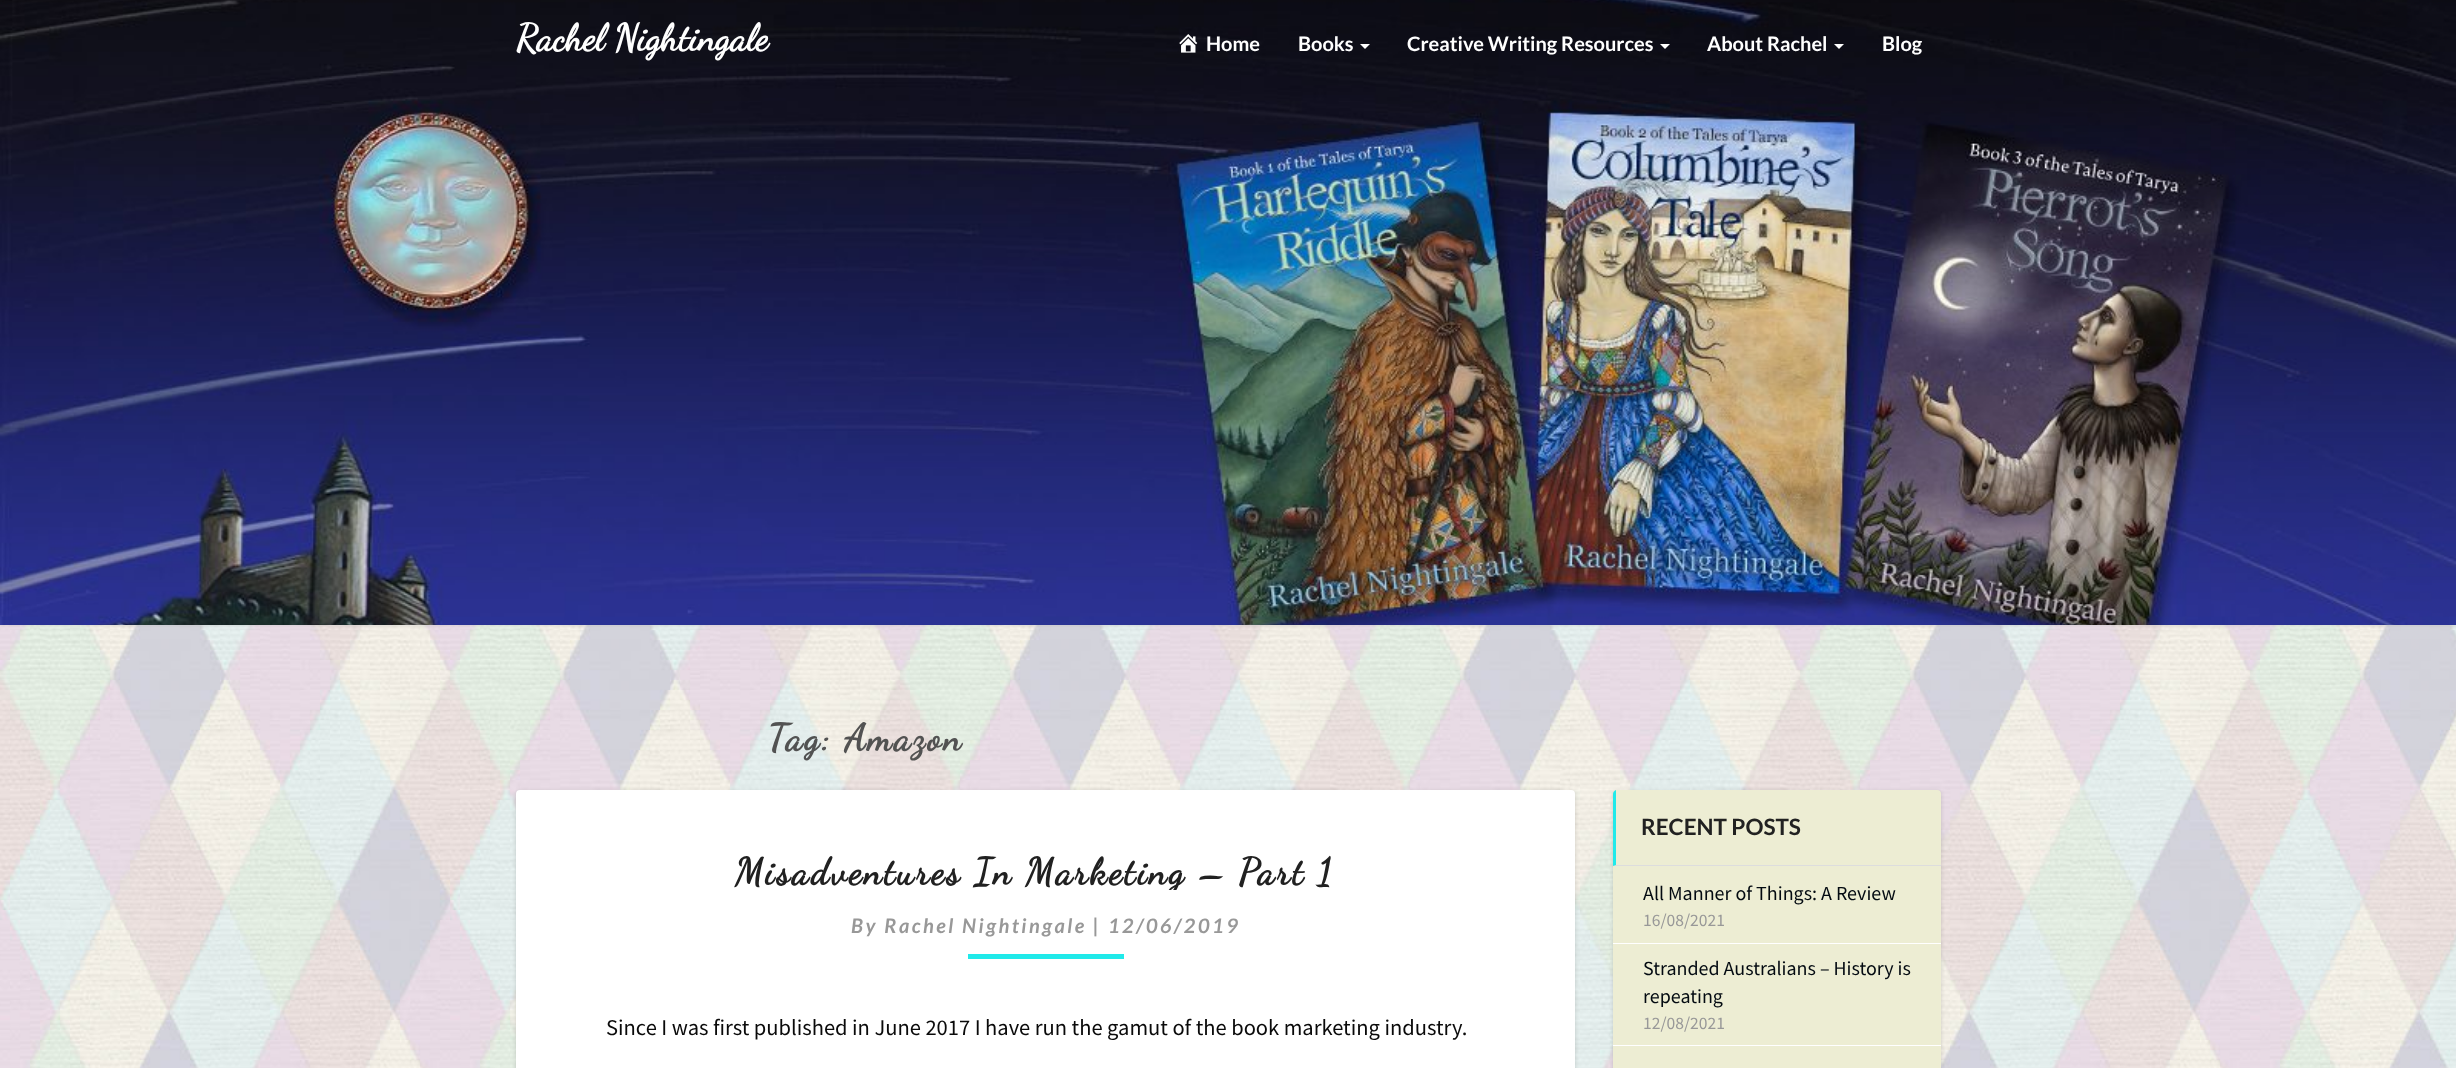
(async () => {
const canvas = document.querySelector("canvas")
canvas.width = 2456
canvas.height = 1068
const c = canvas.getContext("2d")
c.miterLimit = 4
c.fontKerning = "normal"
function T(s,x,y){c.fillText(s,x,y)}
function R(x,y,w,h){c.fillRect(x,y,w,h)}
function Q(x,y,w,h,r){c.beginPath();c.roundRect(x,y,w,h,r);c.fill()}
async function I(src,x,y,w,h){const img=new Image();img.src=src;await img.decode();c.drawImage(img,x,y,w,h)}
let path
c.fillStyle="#fff"
R(0,0,2456,1068)
await I("1.png",0,625,2456,443)
c.fillStyle="#b6b6b64d"
c.filter="blur(1px)"
c.beginPath()
c.rect(-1,-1,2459,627)
c.fill()
c.filter="none"
await I("2.png",0,0,2456,625)
c.font="bold 37.5px Dancing Script"
c.fillStyle="#fff"
T("Rachel Nightingale",516,50)
await I("3.png",1179,34,19,19)
c.font="bold 20px Lato"
T("Home",1206,51)
T("Books",1298,51)
path = new Path2D("M1360 44h10l-5 5z")
c.fill(path)
T("Creative Writing Resources",1407,51)
path = new Path2D("M1660 44h10l-5 5z")
c.fill(path)
T("About Rachel",1707,51)
path = new Path2D("M1834 44h10l-5 5z")
c.fill(path)
T("Blog",1882,51)
c.letterSpacing="2.5px"
c.font="bold 37.5px Dancing Script"
c.fillStyle="#525252"
T("Tag: Amazon",768,750)
c.fillStyle="#00000026"
c.filter="blur(2px)"
c.beginPath()
c.roundRect(516,791,1059,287,4)
c.fill()
c.filter="none"
c.fillStyle="#fff"
Q(516,790,1059,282,4)
c.save()
c.beginPath()
c.rect(666,853,738,37)
c.clip()
c.fillStyle="#212121"
T("Misadventures In Marketing – Part 1",735,884)
c.restore()
c.font="italic bold 20px Lato"
c.fillStyle="#989898"
T("By Rachel Nightingale | 12/06/2019",851,933)
c.fillStyle="#20eaea"
R(968,954,156,5)
c.letterSpacing="0px"
c.font="22.5px Source Sans Pro"
c.fillStyle="#0a0a0a"
T("Since I was first published in June 2017 I have run the gamut of the book marketing industry.",606,1035)
c.fillStyle="#00000026"
c.filter="blur(2px)"
c.beginPath()
c.roundRect(1613,791,328,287,4)
c.fill()
c.filter="none"
c.fillStyle="#ededd3"
Q(1613,790,328,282,4)
c.fillStyle="#ddd"
path = new Path2D("M1941 866h-329l4-1h325z")
c.fill(path)
c.fillStyle="#20eaea"
path = new Path2D("M1616 790v75l-3 1v-72c0-2 1-3 3-4z")
c.fill(path)
c.font="bold 22.5px Lato"
c.fillStyle="#212121"
T("RECENT POSTS",1641,835)
c.fillStyle="#fff"
R(1613,943,328,1)
c.font="20px Source Sans Pro"
c.fillStyle="#030a11"
T("All Manner of Things: A Review",1643,900)
c.font="17.5px Source Sans Pro"
c.fillStyle="#989898"
T("16/08/2021",1643,926)
c.fillStyle="#fff"
R(1613,1045,328,1)
c.font="20px Source Sans Pro"
c.fillStyle="#030a11"
T("Stranded Australians – History is",1643,975)
T("repeating",1643,1003)
c.font="17.5px Source Sans Pro"
c.fillStyle="#989898"
T("12/08/2021",1643,1029)
})()
